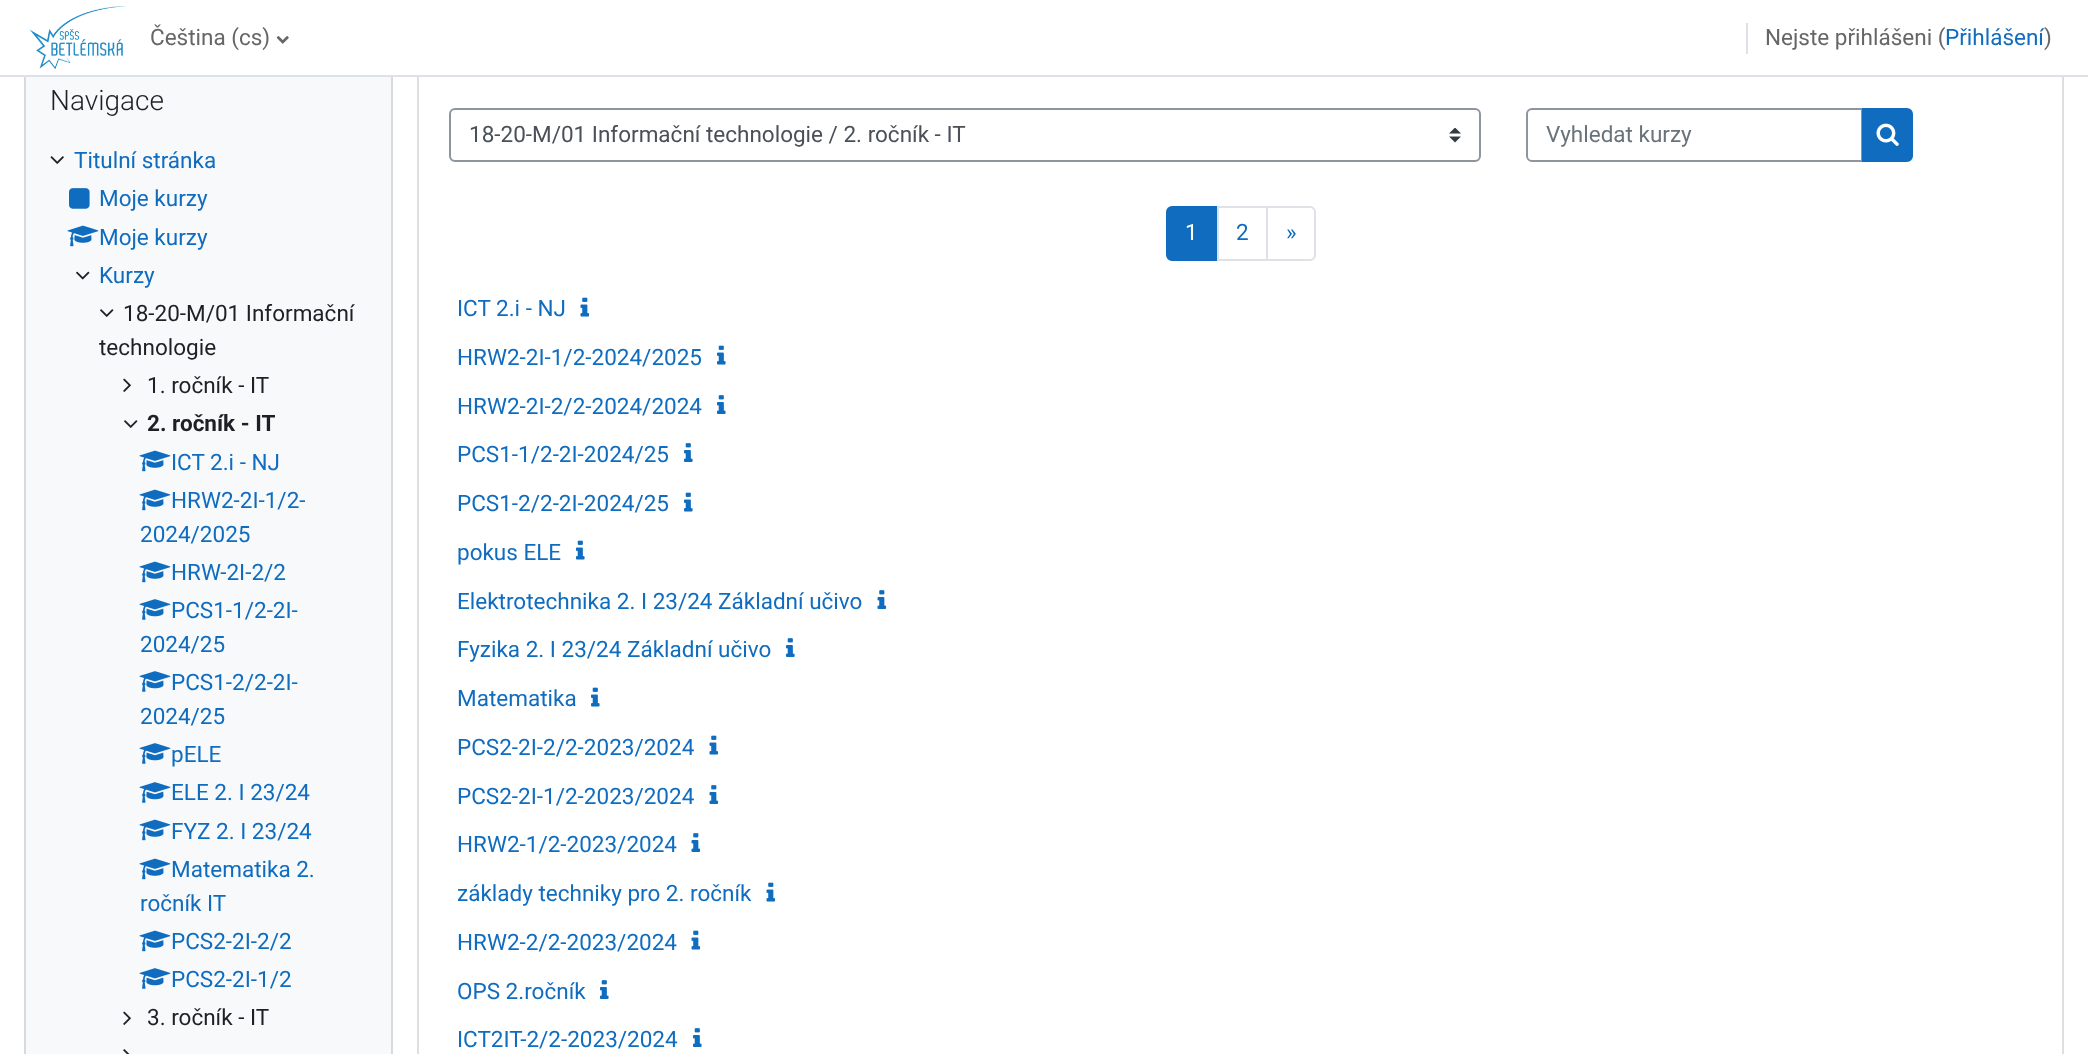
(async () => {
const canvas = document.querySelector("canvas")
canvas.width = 2088
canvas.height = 1054
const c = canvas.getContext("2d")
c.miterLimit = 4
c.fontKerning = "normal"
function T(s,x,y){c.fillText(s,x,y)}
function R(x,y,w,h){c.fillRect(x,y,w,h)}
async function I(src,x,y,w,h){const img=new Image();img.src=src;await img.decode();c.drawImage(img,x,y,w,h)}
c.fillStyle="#fff"
R(0,0,2088,1054)
c.fillStyle="#f8f9fa"
R(26,77,365,977)
c.strokeStyle="#d9dadb"
c.lineWidth=2
c.strokeRect(25,61,367,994)
c.strokeStyle="#dfdfdf"
c.strokeRect(418,61,1645,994)
c.fillStyle="#fff"
R(24,60,2040,15)
c.fillStyle="#dee2e6"
R(0,75,2088,2)
await I("1.png",30,6,96,63)
c.font="22.5px Roboto"
c.fillStyle="#666"
T("Čeština (cs)",150,45)
await I("2.png",276,36,13,8)
c.fillStyle="#dee2e6"
R(1746,23,2,31)
c.fillStyle="#666"
T("Nejste přihlášeni (",1765,45)
c.fillStyle="#0f6cbf"
T("Přihlášení",1945,45)
c.fillStyle="#666"
T(")",2044,45)
c.font="300 28px Roboto"
c.fillStyle="#1d2125"
T("Navigace",50,110)
await I("3.png",50,156,14,8)
c.font="22.5px Roboto"
c.fillStyle="#0f6cbf"
T("Titulní stránka",74,168)
await I("4.png",69,188,21,21)
T("Moje kurzy",99,206)
await I("5.png",67,225,32,22)
T("Moje kurzy",99,245)
await I("6.png",76,271,14,9)
T("Kurzy",99,283)
await I("7.png",100,309,14,8)
c.fillStyle="#1d2125"
T("18-20-M/01 Informační",123,321)
T("technologie",99,355)
await I("8.png",123,378,8,14)
T("1. ročník - IT",147,393)
await I("7.png",124,420,14,8)
c.font="bold 22.5px Roboto"
T("2. ročník - IT",147,431)
await I("5.png",139,450,32,22)
c.font="22.5px Roboto"
c.fillStyle="#0f6cbf"
T("ICT 2.i - NJ",171,470)
await I("5.png",139,489,32,22)
T("HRW2-2I-1/2-",171,508)
T("2024/2025",140,542)
await I("5.png",139,561,32,22)
T("HRW-2I-2/2",171,580)
await I("9.png",139,599,32,21)
T("PCS1-1/2-2I-",171,618)
T("2024/25",140,652)
await I("9.png",139,671,32,21)
T("PCS1-2/2-2I-",171,690)
T("2024/25",140,724)
await I("9.png",139,743,32,21)
T("pELE",171,762)
await I("9.png",139,782,32,21)
T("ELE 2. I 23/24",171,800)
await I("5.png",139,819,32,22)
T("FYZ 2. I 23/24",171,839)
await I("5.png",139,858,32,22)
T("Matematika 2.",171,877)
T("ročník IT",140,911)
await I("5.png",139,930,32,22)
T("PCS2-2I-2/2",171,949)
await I("9.png",139,968,32,21)
T("PCS2-2I-1/2",171,987)
await I("8.png",123,1011,8,14)
c.fillStyle="#1d2125"
T("3. ročník - IT",147,1025)
await I("10.png",123,1049,7,5)
await I("11.png",1449,128,12,15)
c.beginPath()
c.roundRect(450,109,1030,52,5)
c.strokeStyle="#8f959e"
c.stroke()
c.fillStyle="#495057"
T("18-20-M/01 Informační technologie / 2. ročník - IT",469,142)
c.beginPath()
c.roundRect(1527,109,335,52,[5,0,0,5])
c.stroke()
c.fillStyle="#6a737b"
T("Vyhledat kurzy",1546,142)
c.fillStyle="#0f6cbf"
c.beginPath()
c.roundRect(1863,109,49,52,[0,5,5,0])
c.fill()
c.strokeStyle="#0f6cbf"
c.stroke()
await I("12.png",1876,123,23,23)
c.beginPath()
c.roundRect(1167,207,50,53,[5,0,0,5])
c.fill()
c.stroke()
c.fillStyle="#fff"
T("1",1185,240)
c.strokeStyle="#dee2e6"
c.strokeRect(1218,207,49,53)
c.fillStyle="#0f6cbf"
T("2",1236,240)
c.fillStyle="#fff"
c.beginPath()
c.roundRect(1267,207,48,53,[0,5,5,0])
c.fill()
c.stroke()
c.fillStyle="#0f6cbf"
T("»",1286,240)
T("ICT 2.i - NJ",457,316)
await I("13.png",580,297,10,20)
T("HRW2-2I-1/2-2024/2025",457,365)
await I("14.png",717,345,9,20)
T("HRW2-2I-2/2-2024/2024",457,414)
await I("15.png",717,395,9,19)
T("PCS1-1/2-2I-2024/25",457,462)
await I("15.png",684,443,9,19)
T("PCS1-2/2-2I-2024/25",457,511)
await I("14.png",684,492,9,20)
T("pokus ELE",457,560)
await I("14.png",576,540,9,20)
T("Elektrotechnika 2. I 23/24 Základní učivo",457,609)
await I("16.png",877,590,10,19)
T("Fyzika 2. I 23/24 Základní učivo",457,657)
await I("15.png",786,638,9,19)
T("Matematika",457,706)
await I("14.png",591,687,9,20)
T("PCS2-2I-2/2-2023/2024",457,755)
await I("13.png",709,735,10,20)
T("PCS2-2I-1/2-2023/2024",457,804)
await I("16.png",709,785,10,19)
T("HRW2-1/2-2023/2024",457,852)
await I("16.png",691,833,10,19)
T("základy techniky pro 2. ročník",457,901)
await I("13.png",766,882,10,20)
T("HRW2-2/2-2023/2024",457,950)
await I("13.png",691,930,10,20)
T("OPS 2.ročník",457,999)
await I("15.png",600,980,9,19)
T("ICT2IT-2/2-2023/2024",457,1047)
await I("15.png",693,1028,9,19)
})()
